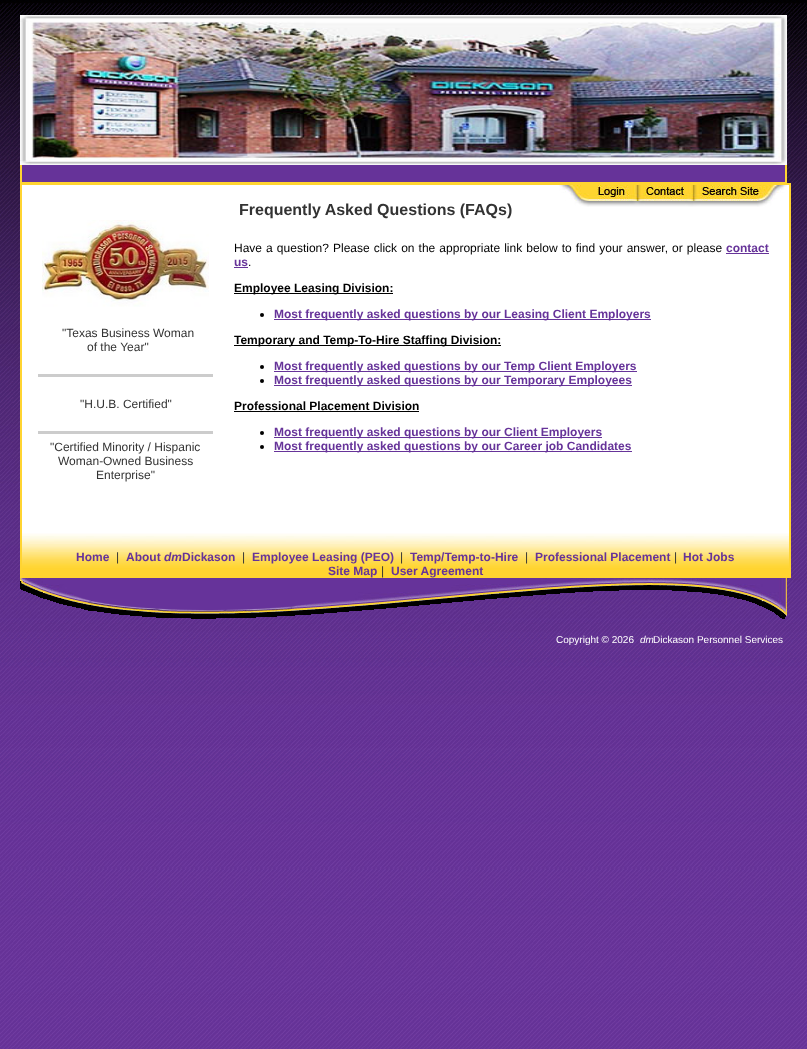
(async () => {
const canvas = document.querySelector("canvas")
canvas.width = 807
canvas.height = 1049
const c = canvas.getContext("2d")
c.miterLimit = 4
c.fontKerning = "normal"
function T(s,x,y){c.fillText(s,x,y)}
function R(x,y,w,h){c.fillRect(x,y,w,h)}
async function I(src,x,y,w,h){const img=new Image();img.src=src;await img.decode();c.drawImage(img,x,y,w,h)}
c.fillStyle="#fff"
R(0,0,807,1049)
await I("1.png",0,0,807,1049)
await I("2.png",20,15,767,150)
c.fillStyle="#639"
R(22,165,763,17)
c.fillStyle="#ffd431"
R(785,165,2,18)
R(20,182,767,1)
R(20,165,2,18)
c.fillStyle="#fff"
R(22,185,767,348)
c.fillStyle="#ffd431"
R(20,183,771,2)
R(789,183,2,395)
R(20,183,2,395)
await I("3.png",42,220,167,87)
c.font="12px Liberation Sans"
c.fillStyle="#333"
T("\"Texas Business Woman",62,337)
T("of the Year\"",87,351)
c.fillStyle="#ccc"
R(38,374,175,3)
c.fillStyle="#333"
T("\"H.U.B. Certified\"",80,408)
c.fillStyle="#ccc"
R(38,431,175,3)
c.fillStyle="#333"
T("\"Certified Minority / Hispanic",50,451)
T("Woman-Owned Business",58,465)
T("Enterprise\"",96,479)
await I("4.png",559,185,228,22)
c.font="bold 16px Liberation Sans"
T("Frequently Asked Questions (FAQs)",239,215)
c.wordSpacing="0.75px"
c.font="12px Liberation Sans"
c.fillStyle="#000"
T("Have a question? Please click on the appropriate link below to find your answer, or please",234,252)
c.wordSpacing="0px"
c.font="bold 12px Liberation Sans"
c.fillStyle="#639"
T("contact",726,252)
R(726,253,43,1)
T("us",234,266)
R(234,267,14,1)
c.font="12px Liberation Sans"
c.fillStyle="#000"
T(".",248,266)
R(234,293,159,1)
c.font="bold 12px Liberation Sans"
T("Employee Leasing Division:",234,292)
c.beginPath()
c.arc(262,315,2,0,7)
c.fill()
c.fillStyle="#639"
R(274,319,377,1)
T("Most frequently asked questions by our Leasing Client Employers",274,318)
c.fillStyle="#000"
R(234,345,267,1)
T("Temporary and Temp-To-Hire Staffing Division:",234,344)
c.beginPath()
c.arc(262,367,2,0,7)
c.fill()
c.fillStyle="#639"
R(274,371,363,1)
T("Most frequently asked questions by our Temp Client Employers",274,370)
c.fillStyle="#000"
c.beginPath()
c.arc(262,381,2,0,7)
c.fill()
c.fillStyle="#639"
R(274,385,358,1)
T("Most frequently asked questions by our Temporary Employees",274,384)
c.fillStyle="#000"
T("Professional Placement Division",234,410)
R(234,411,185,1)
c.beginPath()
c.arc(262,433,2,0,7)
c.fill()
c.fillStyle="#639"
R(274,437,328,1)
T("Most frequently asked questions by our Client Employers",274,436)
c.fillStyle="#000"
c.beginPath()
c.arc(262,447,2,0,7)
c.fill()
c.fillStyle="#639"
R(274,451,358,1)
T("Most frequently asked questions by our Career job Candidates",274,450)
await I("5.png",22,533,767,45)
T("Home",76,561)
c.font="12px Liberation Sans"
c.fillStyle="#333"
T("|",116,561)
c.font="bold 12px Liberation Sans"
c.fillStyle="#639"
T("About",126,561)
c.font="italic bold 12px Liberation Sans"
T("dm",164,561)
c.font="bold 12px Liberation Sans"
T("Dickason",182,561)
c.font="12px Liberation Sans"
c.fillStyle="#333"
T("|",242,561)
c.font="bold 12px Liberation Sans"
c.fillStyle="#639"
T("Employee Leasing (PEO)",252,561)
c.font="12px Liberation Sans"
c.fillStyle="#333"
T("|",400,561)
c.font="bold 12px Liberation Sans"
c.fillStyle="#639"
T("Temp/Temp-to-Hire",410,561)
c.font="12px Liberation Sans"
c.fillStyle="#333"
T("|",525,561)
c.font="bold 12px Liberation Sans"
c.fillStyle="#639"
T("Professional Placement",535,561)
c.font="12px Liberation Sans"
c.fillStyle="#333"
T("|",674,561)
c.font="bold 12px Liberation Sans"
c.fillStyle="#639"
T("Hot Jobs",683,561)
T("Site Map",328,575)
c.font="12px Liberation Sans"
c.fillStyle="#333"
T("|",381,575)
c.font="bold 12px Liberation Sans"
c.fillStyle="#639"
T("User Agreement",391,575)
await I("6.png",20,578,767,41)
c.font="10px Liberation Sans"
c.fillStyle="#fff"
T("Copyright © 2026",556,643)
c.font="italic 10px Liberation Sans"
T("dm",640,643)
c.font="10px Liberation Sans"
T("Dickason Personnel Services",653,643)
})()
